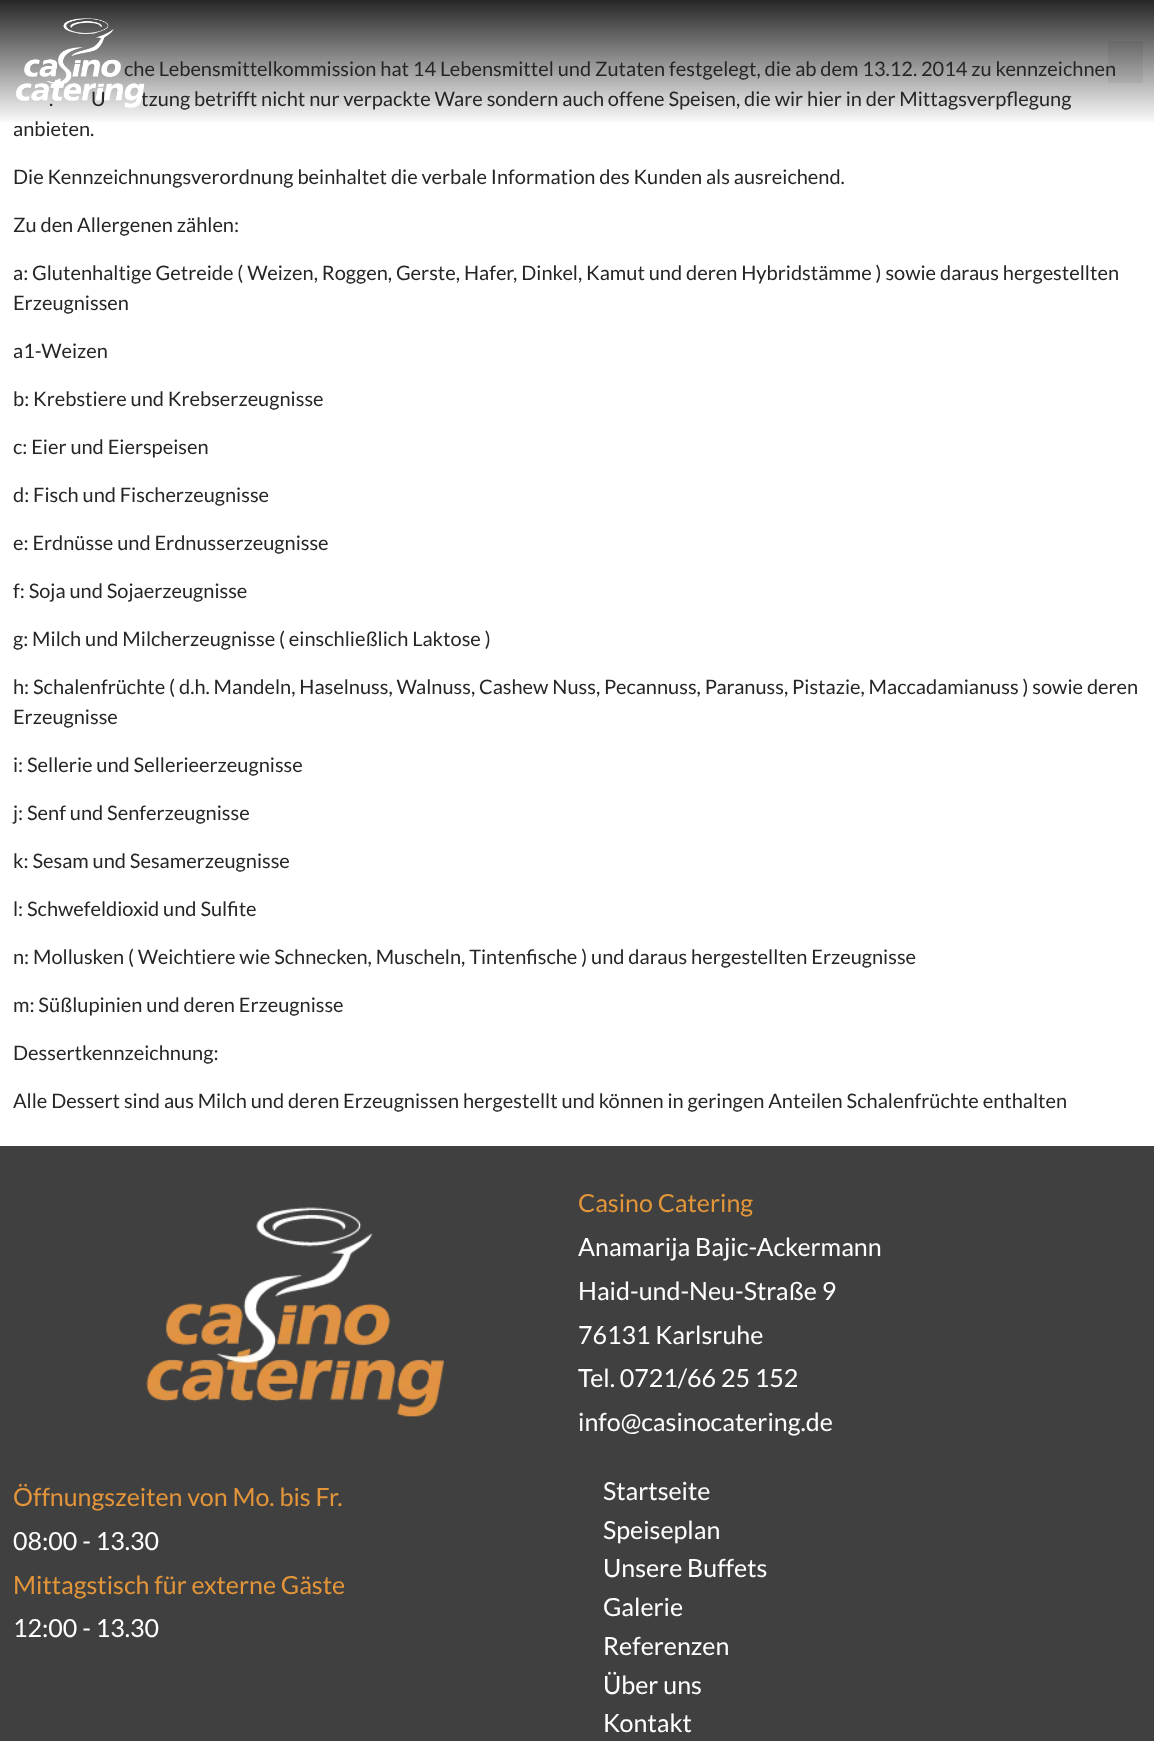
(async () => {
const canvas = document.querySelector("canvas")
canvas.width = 1154
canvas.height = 1741
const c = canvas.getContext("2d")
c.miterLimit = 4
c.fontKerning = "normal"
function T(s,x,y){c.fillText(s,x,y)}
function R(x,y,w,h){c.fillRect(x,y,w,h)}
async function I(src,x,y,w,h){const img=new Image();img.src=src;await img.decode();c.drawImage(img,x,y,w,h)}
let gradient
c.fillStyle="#fff"
R(0,0,1154,1741)
c.font="20px Lato"
c.fillStyle="#262626"
T("che Lebensmittelkommission hat 14 Lebensmittel und Zutaten festgelegt, die ab dem 13.12. 2014 zu kennzeichnen",124,76)
T(".",49,106)
T("U",91,106)
T("tzung betrifft nicht nur verpackte Ware sondern auch offene Speisen, die wir hier in der Mittagsverpflegung",141,106)
T("anbieten.",13,136)
gradient = c.createLinearGradient(578,0,578,125)
gradient.addColorStop(0,"#262626")
gradient.addColorStop(1,"#26262600")
c.fillStyle = gradient
R(0,0,1154,122)
c.fillStyle="#fff"
R(16,125,71,1)
await I("1.png",16,18,129,90)
c.fillStyle="#0000000d"
R(1108,41,35,42)
c.fillStyle="#262626"
T("Die Kennzeichnungsverordnung beinhaltet die verbale Information des Kunden als ausreichend.",13,184)
T("Zu den Allergenen zählen:",13,232)
T("a: Glutenhaltige Getreide ( Weizen, Roggen, Gerste, Hafer, Dinkel, Kamut und deren Hybridstämme ) sowie daraus hergestellten",13,280)
T("Erzeugnissen",13,310)
T("a1-Weizen",13,358)
T("b: Krebstiere und Krebserzeugnisse",13,406)
T("c: Eier und Eierspeisen",13,454)
T("d: Fisch und Fischerzeugnisse",13,502)
T("e: Erdnüsse und Erdnusserzeugnisse",13,550)
T("f: Soja und Sojaerzeugnisse",13,598)
T("g: Milch und Milcherzeugnisse ( einschließlich Laktose )",13,646)
T("h: Schalenfrüchte ( d.h. Mandeln, Haselnuss, Walnuss, Cashew Nuss, Pecannuss, Paranuss, Pistazie, Maccadamianuss ) sowie deren",13,694)
T("Erzeugnisse",13,724)
T("i: Sellerie und Sellerieerzeugnisse",13,772)
T("j: Senf und Senferzeugnisse",13,820)
T("k: Sesam und Sesamerzeugnisse",13,868)
T("l: Schwefeldioxid und Sulfite",13,916)
T("n: Mollusken ( Weichtiere wie Schnecken, Muscheln, Tintenfische ) und daraus hergestellten Erzeugnisse",13,964)
T("m: Süßlupinien und deren Erzeugnisse",13,1012)
T("Dessertkennzeichnung:",13,1060)
T("Alle Dessert sind aus Milch und deren Erzeugnissen hergestellt und können in geringen Anteilen Schalenfrüchte enthalten",13,1108)
c.fillStyle="#404040"
R(0,1146,1154,595)
await I("2.png",146,1207,298,210)
c.font="25px Lato"
c.fillStyle="#e39539"
T("Casino Catering",578,1212)
c.fillStyle="#fff"
T("Anamarija Bajic-Ackermann",578,1256)
T("Haid-und-Neu-Straße 9",578,1300)
T("76131 Karlsruhe",578,1344)
T("Tel. 0721/66 25 152",578,1387)
T("info@casinocatering.de",578,1431)
c.fillStyle="#e39539"
T("Öffnungszeiten von Mo. bis Fr.",13,1506)
c.fillStyle="#fff"
T("08:00 - 13.30",13,1550)
c.fillStyle="#e39539"
T("Mittagstisch für externe Gäste",13,1594)
c.fillStyle="#fff"
T("12:00 - 13.30",13,1637)
T("Startseite",603,1500)
T("Speiseplan",603,1539)
T("Unsere Buffets",603,1577)
T("Galerie",603,1616)
T("Referenzen",603,1655)
T("Über uns",603,1694)
T("Kontakt",603,1732)
})()
